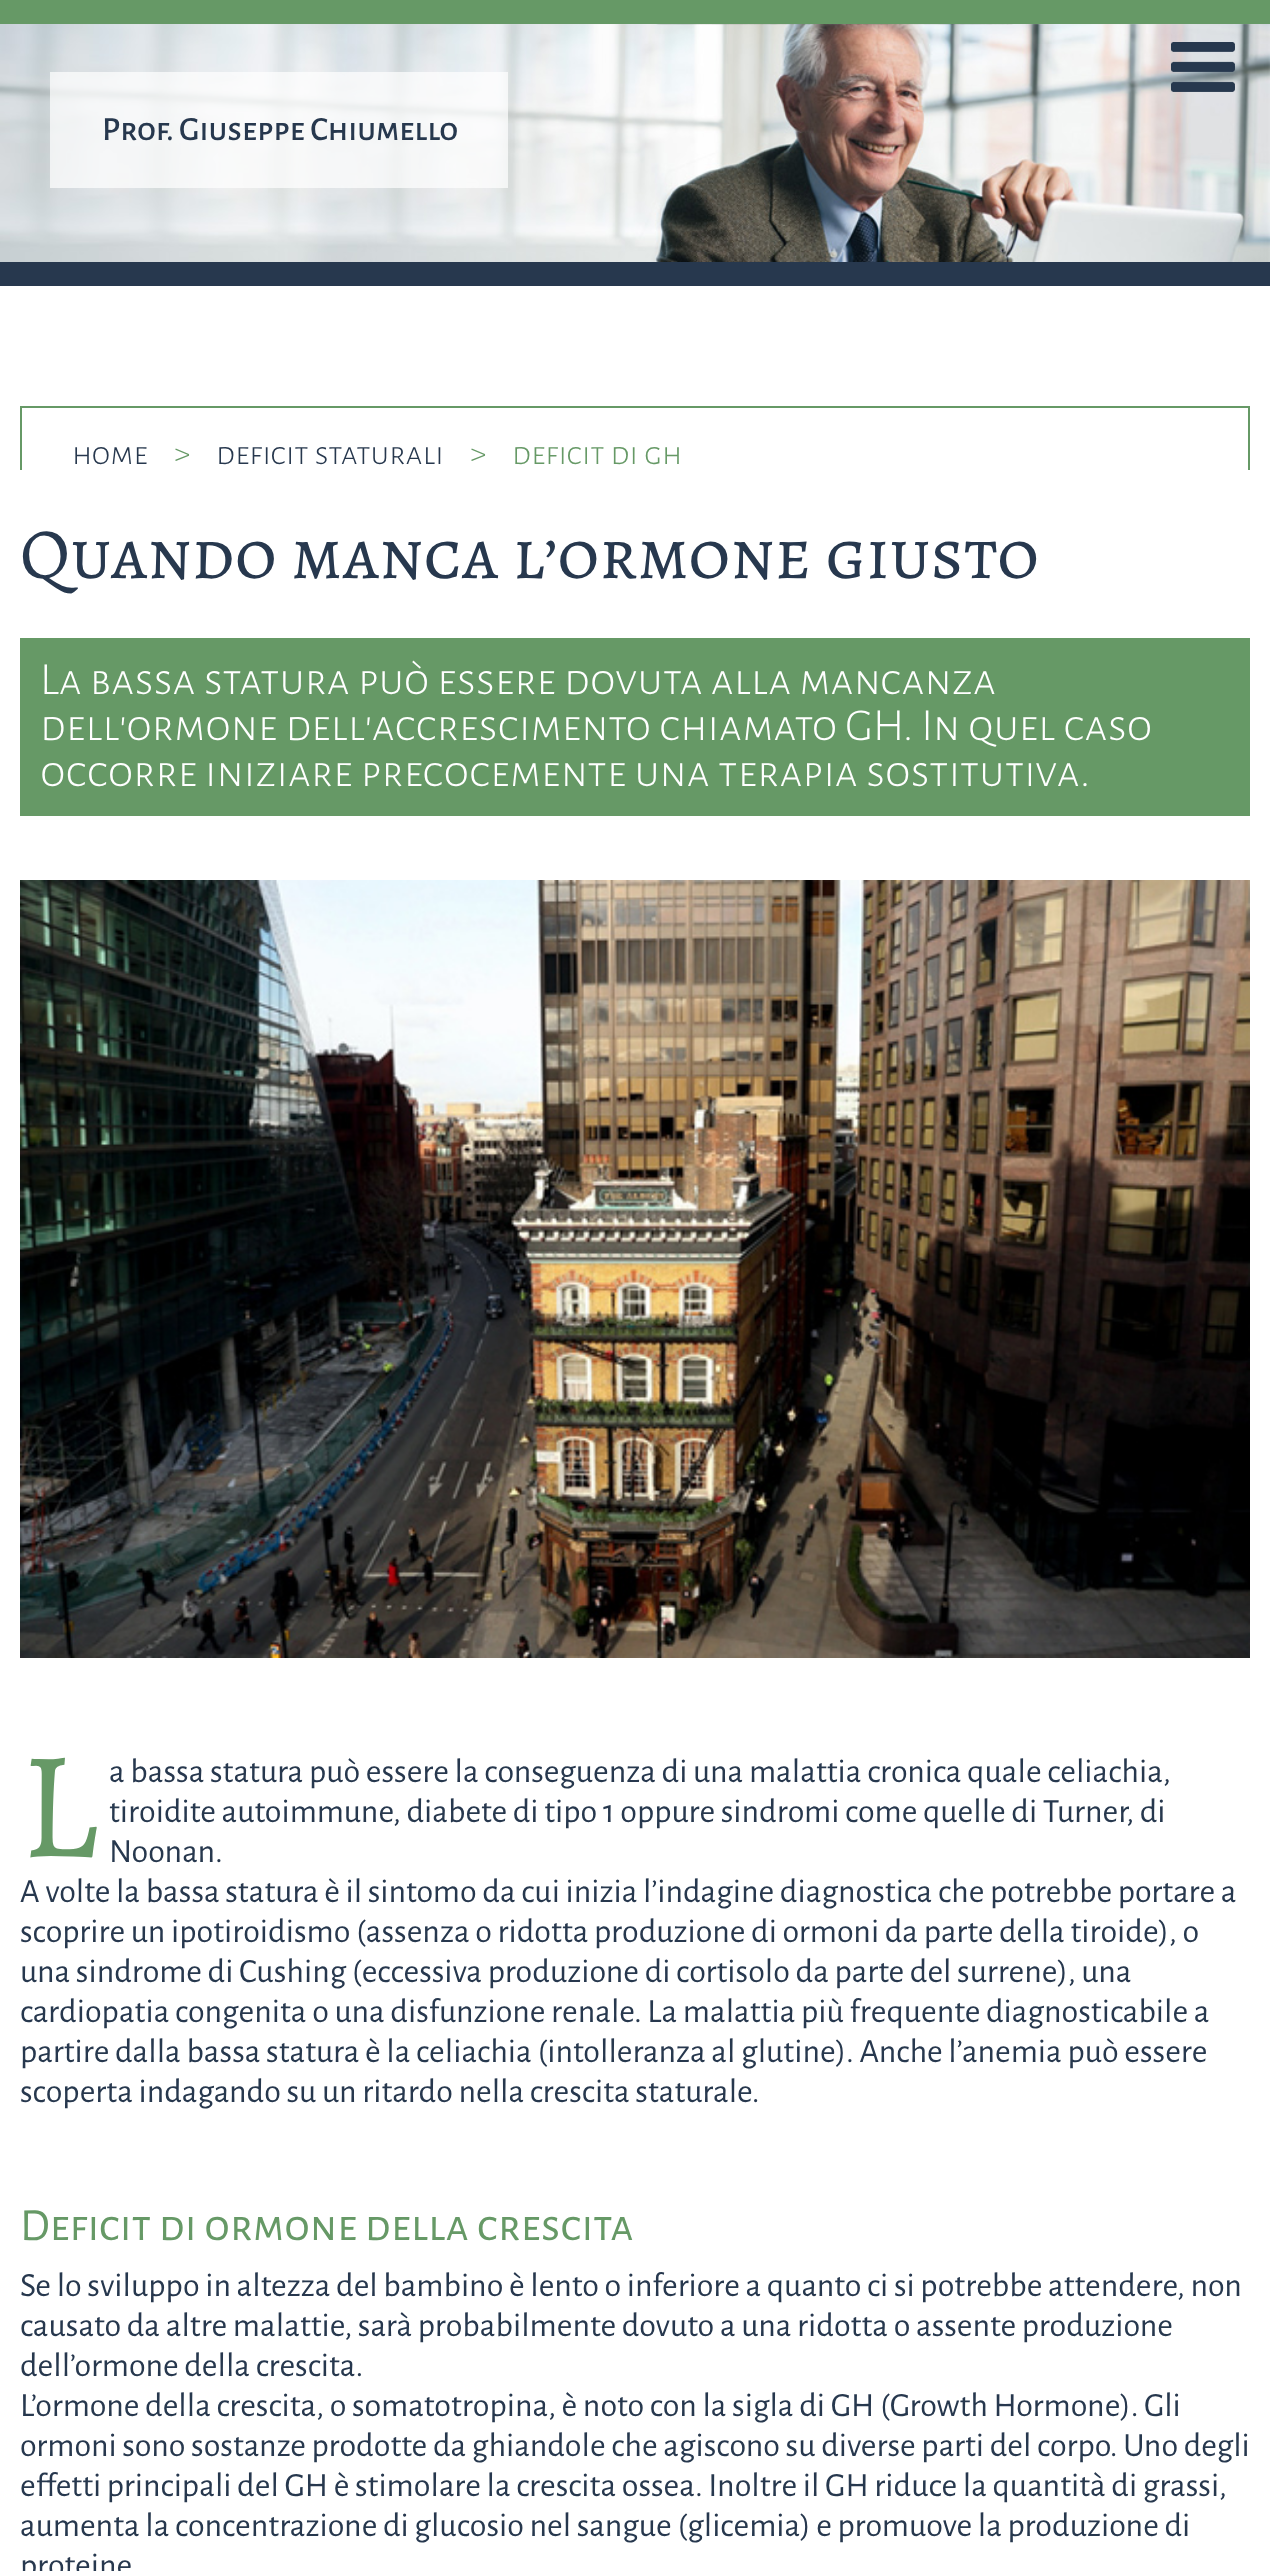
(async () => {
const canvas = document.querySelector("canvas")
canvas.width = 1270
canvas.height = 2571
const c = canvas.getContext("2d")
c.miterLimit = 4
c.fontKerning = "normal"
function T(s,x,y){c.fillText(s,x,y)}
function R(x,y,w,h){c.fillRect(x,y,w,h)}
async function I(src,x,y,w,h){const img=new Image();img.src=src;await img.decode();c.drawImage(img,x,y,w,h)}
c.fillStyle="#fff"
R(0,0,1270,2571)
c.fillStyle="#696"
R(0,0,1270,24)
await I("1.png",0,24,1270,238)
c.fillStyle="#27384e"
R(0,262,1270,24)
await I("2.png",1171,42,64,50)
c.fillStyle="#ffffffb3"
R(50,72,458,116)
c.font="500 34px Alegreya Sans SC"
c.fillStyle="#27384e"
T("Prof. Giuseppe Chiumello",102,140)
c.fillStyle="#696"
R(20,406,1230,2)
R(1248,406,2,64)
R(20,406,2,64)
c.font="300 34px Alegreya Sans SC"
c.fillStyle="#27384e"
T("home",72,464)
c.fillStyle="#696"
T(">",174,464)
c.fillStyle="#27384e"
T("deficit staturali",216,464)
c.fillStyle="#696"
T(">",470,464)
T("deficit di gh",512,464)
c.font="72px Alegreya SC"
c.fillStyle="#27384e"
T("Quando manca l’ormone giusto",20,578)
c.fillStyle="#696"
R(20,638,1230,178)
c.font="300 46px Alegreya Sans SC"
c.fillStyle="#fff"
T("La bassa statura può essere dovuta alla mancanza",40,694)
T("dell'ormone dell'accrescimento chiamato GH. In quel caso",40,740)
T("occorre iniziare precocemente una terapia sostitutiva.",40,786)
await I("3.png",20,880,1230,778)
c.font="152px Alegreya SC"
c.fillStyle="#696"
T("L",20,1856)
c.font="34px Alegreya Sans"
c.fillStyle="#27384e"
T("a bassa statura può essere la conseguenza di una malattia cronica quale celiachia,",109,1782)
T("tiroidite autoimmune, diabete di tipo 1 oppure sindromi come quelle di Turner, di",109,1822)
T("Noonan.",109,1862)
T("A volte la bassa statura è il sintomo da cui inizia l’indagine diagnostica che potrebbe portare a",20,1902)
T("scoprire un ipotiroidismo (assenza o ridotta produzione di ormoni da parte della tiroide), o",20,1942)
T("una sindrome di Cushing (eccessiva produzione di cortisolo da parte del surrene), una",20,1982)
T("cardiopatia congenita o una disfunzione renale. La malattia più frequente diagnosticabile a",20,2022)
T("partire dalla bassa statura è la celiachia (intolleranza al glutine). Anche l’anemia può essere",20,2062)
T("scoperta indagando su un ritardo nella crescita staturale.",20,2102)
c.font="46px Alegreya Sans SC"
c.fillStyle="#696"
T("Deficit di ormone della crescita",20,2240)
c.font="34px Alegreya Sans"
c.fillStyle="#27384e"
T("Se lo sviluppo in altezza del bambino è lento o inferiore a quanto ci si potrebbe attendere, non",20,2296)
T("causato da altre malattie, sarà probabilmente dovuto a una ridotta o assente produzione",20,2336)
T("dell’ormone della crescita.",20,2376)
T("L’ormone della crescita, o somatotropina, è noto con la sigla di GH (Growth Hormone). Gli",20,2416)
T("ormoni sono sostanze prodotte da ghiandole che agiscono su diverse parti del corpo. Uno degli",20,2456)
T("effetti principali del GH è stimolare la crescita ossea. Inoltre il GH riduce la quantità di grassi,",20,2496)
T("aumenta la concentrazione di glucosio nel sangue (glicemia) e promuove la produzione di",20,2536)
T("proteine",20,2576)
})()
